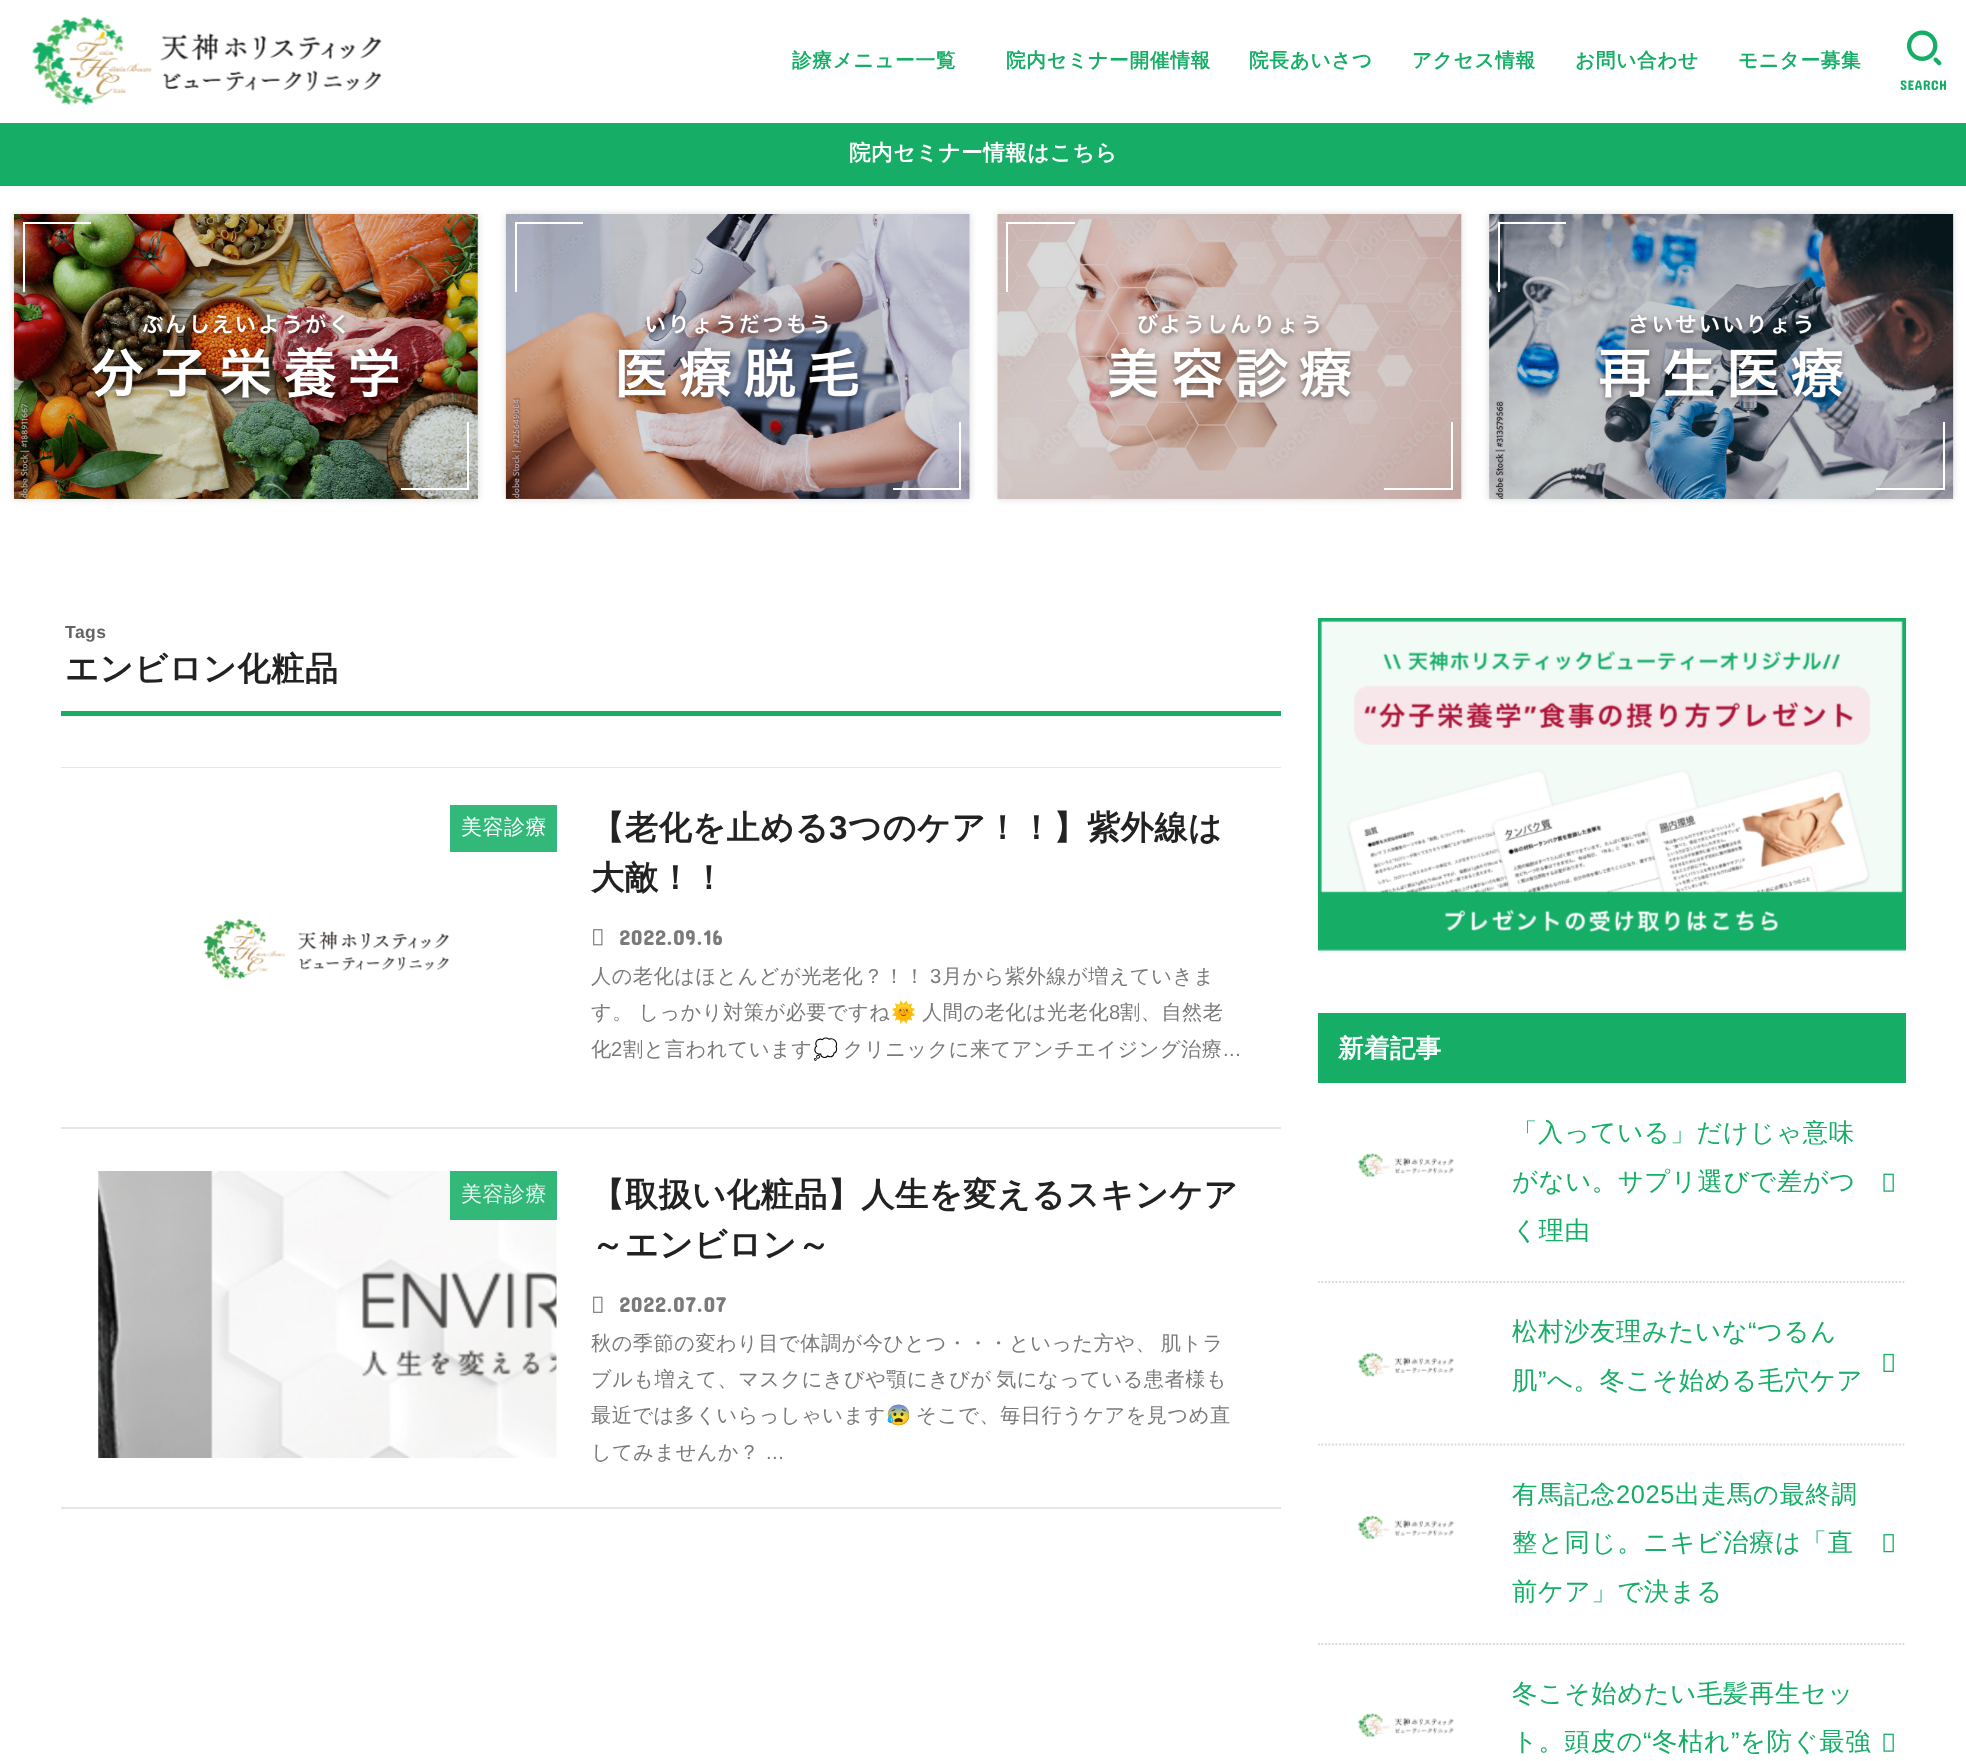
(async () => {
const canvas = document.querySelector("canvas")
canvas.width = 1966
canvas.height = 1761
const c = canvas.getContext("2d")
c.miterLimit = 4
c.fontKerning = "normal"
function T(s,x,y){c.fillText(s,x,y)}
function R(x,y,w,h){c.fillRect(x,y,w,h)}
async function I(src,x,y,w,h){const img=new Image();img.src=src;await img.decode();c.drawImage(img,x,y,w,h)}
let path
c.fillStyle="#fff"
R(0,0,1966,1761)
await I("1.png",32,16,350,90)
c.letterSpacing="0.75px"
c.font="bold 19.6px WenQuanYi Zen Hei"
c.fillStyle="#16ae67"
T("診療メニュー一覧",792,67)
T("院内セミナー開催情報",1006,67)
T("院長あいさつ",1249,67)
T("アクセス情報",1412,67)
T("お問い合わせ",1575,67)
T("モニター募集",1738,67)
await I("2.png",1906,30,36,36)
c.letterSpacing="0.5px"
c.font="14px Concert One"
T("SEARCH",1900,90)
R(0,123,1966,63)
c.font="bold 21.6px WenQuanYi Zen Hei"
c.fillStyle="#fff"
T("院内セミナー情報はこちら",849,160)
c.fillStyle="#00000026"
c.filter="blur(3.5px)"
c.beginPath()
c.rect(14,214,464,285)
c.fill()
c.filter="none"
await I("3.png",13,214,465,285)
c.fillStyle="#fff"
R(23,222,68,2)
R(23,222,2,70)
R(467,422,2,68)
R(401,488,68,2)
c.fillStyle="#00000026"
c.filter="blur(3.5px)"
c.beginPath()
c.rect(506,214,464,285)
c.fill()
c.filter="none"
await I("4.png",505,214,465,285)
c.fillStyle="#fff"
R(515,222,68,2)
R(515,222,2,70)
R(959,422,2,68)
R(893,488,68,2)
c.fillStyle="#00000026"
c.filter="blur(3.5px)"
c.beginPath()
c.rect(998,214,463,285)
c.fill()
c.filter="none"
await I("5.png",997,214,465,285)
c.fillStyle="#fff"
R(1006,222,69,2)
R(1006,222,2,70)
R(1451,422,2,68)
R(1384,488,69,2)
c.fillStyle="#00000026"
c.filter="blur(3.5px)"
c.beginPath()
c.rect(1489,214,464,285)
c.fill()
c.filter="none"
await I("6.png",1489,214,465,285)
c.fillStyle="#fff"
R(1498,222,68,2)
R(1498,222,2,70)
R(1943,422,2,68)
R(1876,488,68,2)
c.fillStyle="#16ae67"
R(61,711,1220,5)
c.font="bold 17.5px Liberation Sans"
c.fillStyle="#646464"
T("Tags",65,638)
c.font="bold 33.2px WenQuanYi Zen Hei"
c.fillStyle="#222"
T("エンビロン化粧品",65,680)
c.fillStyle="#e6e6e6"
R(61,767,1220,1)
R(61,1127,1220,2)
c.fillStyle="#32b879"
R(450,805,107,47)
c.font="500 21px WenQuanYi Zen Hei"
c.fillStyle="#fff"
T("美容診療",461,834)
await I("7.png",203,919,246,61)
c.font="bold 33.2px WenQuanYi Zen Hei"
c.fillStyle="#222"
T("【老化を止める",591,839)
c.font="bold 33.2px Liberation Sans"
T("3",829,839)
c.font="bold 33.2px WenQuanYi Zen Hei"
T("つのケア！！】紫外線は",848,839)
T("大敵！！",591,889)
await I("8.png",593,929,10,17)
c.font="21.6px Concert One"
c.fillStyle="#7a7a7a"
T("2022.09.16",619,945)
c.font="500 20.2px WenQuanYi Zen Hei"
T("人の老化はほとんどが光老化？！！",591,983)
c.font="20.2px Liberation Sans"
T("3",930,983)
c.font="500 20.2px WenQuanYi Zen Hei"
T("月から紫外線が増えていきま",942,983)
c.wordSpacing="-1px"
T("す。 しっかり対策が必要ですね",591,1019)
c.wordSpacing="0px"
c.font="20.2px Noto Color Emoji"
T("🌞",891,1019)
c.font="500 20.2px WenQuanYi Zen Hei"
T("人間の老化は光老化",922,1019)
c.font="20.2px Liberation Sans"
T("8",1109,1019)
c.font="500 20.2px WenQuanYi Zen Hei"
T("割、自然老",1120,1019)
T("化",591,1056)
c.font="20.2px Liberation Sans"
T("2",611,1056)
c.font="500 20.2px WenQuanYi Zen Hei"
T("割と言われています",623,1056)
c.font="20.2px Noto Color Emoji"
T("💭",813,1056)
c.font="500 20.2px WenQuanYi Zen Hei"
T("クリニックに来てアンチエイジング治療",843,1056)
c.font="20.2px Liberation Sans"
T("...",1223,1056)
c.fillStyle="#e6e6e6"
R(61,1507,1220,2)
await I("9.png",98,1171,459,287)
c.fillStyle="#16ae67e0"
R(450,1171,107,49)
c.font="500 21px WenQuanYi Zen Hei"
c.fillStyle="#e6f6ef"
T("美容診療",461,1201)
c.font="bold 33.2px WenQuanYi Zen Hei"
c.fillStyle="#222"
T("【取扱い化粧品】人生を変えるスキンケア",591,1206)
T("～エンビロン～",591,1256)
await I("10.png",593,1296,10,17)
c.font="21.6px Concert One"
c.fillStyle="#7a7a7a"
T("2022.07.07",619,1312)
c.wordSpacing="-2px"
c.font="500 20.2px WenQuanYi Zen Hei"
T("秋の季節の変わり目で体調が今ひとつ・・・といった方や、 肌トラ",591,1350)
T("ブルも増えて、マスクにきびや顎にきびが 気になっている患者様も",591,1386)
c.wordSpacing="0px"
T("最近では多くいらっしゃいます",591,1422)
c.font="20.2px Noto Color Emoji"
T("😰",886,1422)
c.font="500 20.2px WenQuanYi Zen Hei"
T("そこで、毎日行うケアを見つめ直",916,1422)
T("してみませんか？",591,1459)
c.font="20.2px Liberation Sans"
T("...",766,1459)
await I("11.png",1318,618,588,333)
c.fillStyle="#16ae67"
R(1318,1013,588,70)
c.font="bold 25.4px WenQuanYi Zen Hei"
c.fillStyle="#fff"
T("新着記事",1338,1057)
path = new Path2D("M1318 1282h588")
c.strokeStyle="#d8d8d8"
c.lineWidth=1.8
c.setLineDash([1.75,1.75])
c.stroke(path)
await I("12.png",1357,1153,97,24)
c.letterSpacing="0.6px"
c.font="500 25.4px WenQuanYi Zen Hei"
c.fillStyle="#16ae67"
T("「入っている」だけじゃ意味",1512,1141)
T("がない。サプリ選びで差がつ",1512,1190)
T("く理由",1512,1239)
await I("13.png",1883,1173,11,19)
path = new Path2D("M1318 1444.5h588")
c.stroke(path)
await I("14.png",1357,1352,97,25)
T("松村沙友理みたいな",1512,1340)
c.font="25.4px Liberation Sans"
T("“",1748,1340)
c.font="500 25.4px WenQuanYi Zen Hei"
T("つるん",1757,1340)
T("肌",1512,1389)
c.font="25.4px Liberation Sans"
T("”",1538,1389)
c.font="500 25.4px WenQuanYi Zen Hei"
T("へ。冬こそ始める毛穴ケア",1547,1389)
await I("15.png",1883,1353,11,19)
path = new Path2D("M1318 1644h588")
c.stroke(path)
await I("16.png",1357,1515,97,25)
T("有馬記念",1512,1503)
c.font="25.4px Liberation Sans"
T("2025",1616,1503)
c.font="500 25.4px WenQuanYi Zen Hei"
T("出走馬の最終調",1675,1503)
T("整と同じ。ニキビ治療は「直",1512,1551)
T("前ケア」で決まる",1512,1600)
await I("17.png",1883,1534,11,19)
await I("12.png",1357,1713,97,24)
T("冬こそ始めたい毛髪再生セッ",1512,1702)
T("ト。頭皮の",1512,1750)
c.font="25.4px Liberation Sans"
T("“",1643,1750)
c.font="500 25.4px WenQuanYi Zen Hei"
T("冬枯れ",1652,1750)
c.font="25.4px Liberation Sans"
T("”",1731,1750)
c.font="500 25.4px WenQuanYi Zen Hei"
T("を防ぐ最強",1740,1750)
await I("13.png",1883,1733,11,19)
})()
